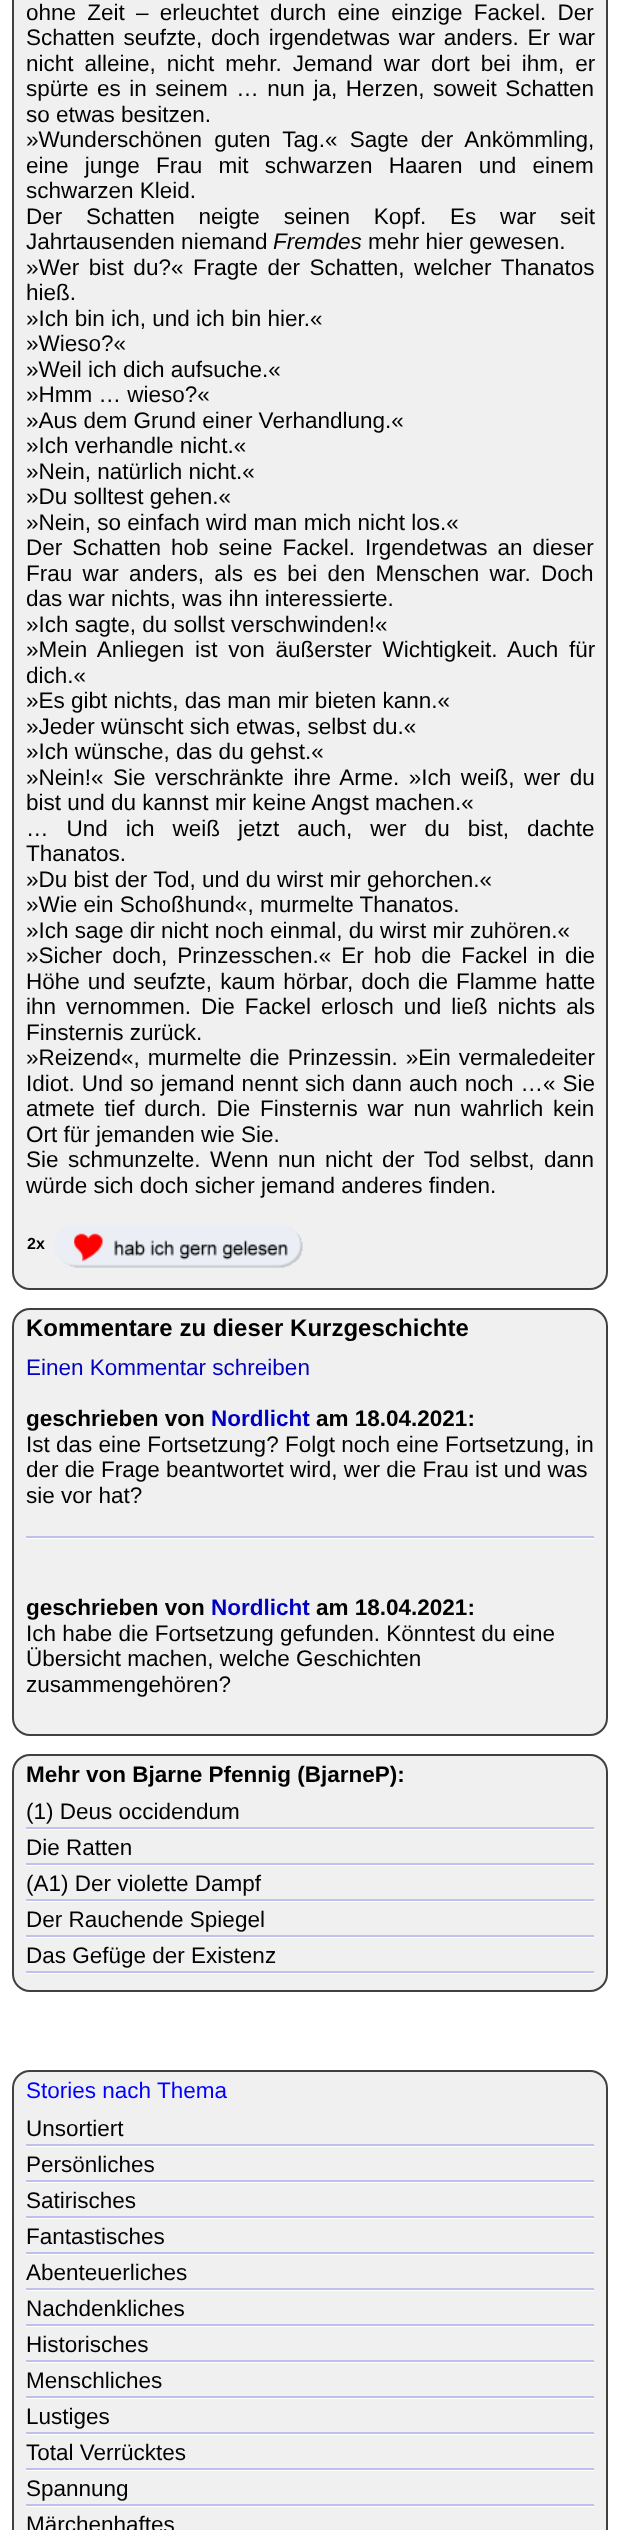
(async () => {
const canvas = document.querySelector("canvas")
canvas.width = 619
canvas.height = 2530
const c = canvas.getContext("2d")
c.miterLimit = 4
c.fontKerning = "normal"
function T(s,x,y){c.fillText(s,x,y)}
function R(x,y,w,h){c.fillRect(x,y,w,h)}
async function I(src,x,y,w,h){const img=new Image();img.src=src;await img.decode();c.drawImage(img,x,y,w,h)}
c.fillStyle="#fff"
R(0,0,619,2530)
c.fillStyle="#f0f0f0"
c.beginPath()
c.roundRect(13,-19,594,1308,17)
c.fill()
c.strokeStyle="#404040"
c.lineWidth=2
c.stroke()
c.wordSpacing="5px"
c.font="22.5px Liberation Sans"
c.fillStyle="#000"
T("ohne Zeit – erleuchtet durch eine einzige Fackel. Der",26,20)
c.wordSpacing="2.5px"
T("Schatten seufzte, doch irgendetwas war anders. Er war",26,45)
c.wordSpacing="4.75px"
T("nicht alleine, nicht mehr. Jemand war dort bei ihm, er",26,71)
c.wordSpacing="2.25px"
T("spürte es in seinem … nun ja, Herzen, soweit Schatten",26,96)
c.wordSpacing="0px"
T("so etwas besitzen.",26,122)
c.wordSpacing="6px"
T("»Wunderschönen guten Tag.« Sagte der Ankömmling,",26,147)
c.wordSpacing="10px"
T("eine junge Frau mit schwarzen Haaren und einem",26,173)
c.wordSpacing="0px"
T("schwarzen Kleid.",26,198)
c.wordSpacing="17.5px"
T("Der Schatten neigte seinen Kopf. Es war seit",26,224)
c.wordSpacing="0px"
T("Jahrtausenden niemand",26,249)
c.font="italic 22.5px Liberation Sans"
T("Fremdes",273,249)
c.font="22.5px Liberation Sans"
T("mehr hier gewesen.",368,249)
c.wordSpacing="3.25px"
T("»Wer bist du?« Fragte der Schatten, welcher Thanatos",26,275)
c.wordSpacing="0px"
T("hieß.",26,300)
T("»Ich bin ich, und ich bin hier.«",26,326)
T("»Wieso?«",26,351)
T("»Weil ich dich aufsuche.«",26,377)
T("»Hmm … wieso?«",26,402)
T("»Aus dem Grund einer Verhandlung.«",26,428)
T("»Ich verhandle nicht.«",26,453)
T("»Nein, natürlich nicht.«",26,479)
T("»Du solltest gehen.«",26,504)
T("»Nein, so einfach wird man mich nicht los.«",26,530)
c.wordSpacing="3.75px"
T("Der Schatten hob seine Fackel. Irgendetwas an dieser",26,555)
c.wordSpacing="4px"
T("Frau war anders, als es bei den Menschen war. Doch",26,581)
c.wordSpacing="0px"
T("das war nichts, was ihn interessierte.",26,606)
T("»Ich sagte, du sollst verschwinden!«",26,632)
c.wordSpacing="4.5px"
T("»Mein Anliegen ist von äußerster Wichtigkeit. Auch für",26,657)
c.wordSpacing="0px"
T("dich.«",26,683)
T("»Es gibt nichts, das man mir bieten kann.«",26,708)
T("»Jeder wünscht sich etwas, selbst du.«",26,734)
T("»Ich wünsche, das du gehst.«",26,759)
c.wordSpacing="3.25px"
T("»Nein!« Sie verschränkte ihre Arme. »Ich weiß, wer du",26,785)
c.wordSpacing="0px"
T("bist und du kannst mir keine Angst machen.«",26,810)
c.wordSpacing="11.75px"
T("… Und ich weiß jetzt auch, wer du bist, dachte",26,836)
c.wordSpacing="0px"
T("Thanatos.",26,861)
T("»Du bist der Tod, und du wirst mir gehorchen.«",26,887)
T("»Wie ein Schoßhund«, murmelte Thanatos.",26,912)
T("»Ich sage dir nicht noch einmal, du wirst mir zuhören.«",26,938)
c.wordSpacing="3.75px"
T("»Sicher doch, Prinzesschen.« Er hob die Fackel in die",26,963)
c.wordSpacing="1.75px"
T("Höhe und seufzte, kaum hörbar, doch die Flamme hatte",26,989)
c.wordSpacing="3.75px"
T("ihn vernommen. Die Fackel erlosch und ließ nichts als",26,1014)
c.wordSpacing="0px"
T("Finsternis zurück.",26,1040)
c.wordSpacing="1.75px"
T("»Reizend«, murmelte die Prinzessin. »Ein vermaledeiter",26,1065)
c.wordSpacing="0.75px"
T("Idiot. Und so jemand nennt sich dann auch noch …« Sie",26,1091)
c.wordSpacing="3.5px"
T("atmete tief durch. Die Finsternis war nun wahrlich kein",26,1116)
c.wordSpacing="0px"
T("Ort für jemanden wie Sie.",26,1142)
c.wordSpacing="3.25px"
T("Sie schmunzelte. Wenn nun nicht der Tod selbst, dann",26,1167)
c.wordSpacing="0px"
T("würde sich doch sicher jemand anderes finden.",26,1193)
c.font="bold 16px Liberation Sans"
T("2x",27,1249)
await I("1.png",54,1225,249,43)
c.fillStyle="#f0f0f0"
c.beginPath()
c.roundRect(13,1309,594,426,17)
c.fill()
c.stroke()
c.font="bold 24px Liberation Sans"
c.fillStyle="#000"
T("Kommentare zu dieser Kurzgeschichte",26,1336)
c.font="22.5px Liberation Sans"
c.fillStyle="#0000c0"
T("Einen Kommentar schreiben",26,1375)
c.font="bold 22.5px Liberation Sans"
c.fillStyle="#000"
T("geschrieben von",26,1426)
c.fillStyle="#0000c0"
T("Nordlicht",211,1426)
c.fillStyle="#000"
T("am 18.04.2021:",316,1426)
c.font="22.5px Liberation Sans"
T("Ist das eine Fortsetzung? Folgt noch eine Fortsetzung, in",26,1452)
T("der die Frage beantwortet wird, wer die Frau ist und was",26,1477)
T("sie vor hat?",26,1503)
c.fillStyle="#fff"
R(26,1538,568,1)
c.fillStyle="#c0c0ef"
R(26,1536,568,2)
c.font="bold 22.5px Liberation Sans"
c.fillStyle="#000"
T("geschrieben von",26,1615)
c.fillStyle="#0000c0"
T("Nordlicht",211,1615)
c.fillStyle="#000"
T("am 18.04.2021:",316,1615)
c.font="22.5px Liberation Sans"
T("Ich habe die Fortsetzung gefunden. Könntest du eine",26,1641)
T("Übersicht machen, welche Geschichten",26,1666)
T("zusammengehören?",26,1692)
c.fillStyle="#f0f0f0"
c.beginPath()
c.roundRect(13,1755,594,236,17)
c.fill()
c.stroke()
c.font="bold 22.5px Liberation Sans"
c.fillStyle="#000"
T("Mehr von Bjarne Pfennig (BjarneP):",26,1782)
c.font="22.5px Liberation Sans"
T("(1) Deus occidendum",26,1819)
c.fillStyle="#fff"
R(26,1829,568,1)
c.fillStyle="#c0c0ef"
R(26,1827,568,2)
c.fillStyle="#000"
T("Die Ratten",26,1855)
c.fillStyle="#fff"
R(26,1865,568,1)
c.fillStyle="#c0c0ef"
R(26,1863,568,2)
c.fillStyle="#000"
T("(A1) Der violette Dampf",26,1891)
c.fillStyle="#fff"
R(26,1901,568,1)
c.fillStyle="#c0c0ef"
R(26,1899,568,2)
c.fillStyle="#000"
T("Der Rauchende Spiegel",26,1927)
c.fillStyle="#fff"
R(26,1937,568,1)
c.fillStyle="#c0c0ef"
R(26,1935,568,2)
c.fillStyle="#000"
T("Das Gefüge der Existenz",26,1963)
c.fillStyle="#fff"
R(26,1973,568,1)
c.fillStyle="#c0c0ef"
R(26,1971,568,2)
c.fillStyle="#f0f0f0"
c.beginPath()
c.roundRect(13,2071,594,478,17)
c.fill()
c.stroke()
c.fillStyle="#00f"
T("Stories nach Thema",26,2098)
c.fillStyle="#000"
T("Unsortiert",26,2136)
c.fillStyle="#fff"
R(26,2146,568,1)
c.fillStyle="#c0c0ef"
R(26,2144,568,2)
c.fillStyle="#000"
T("Persönliches",26,2172)
c.fillStyle="#fff"
R(26,2182,568,1)
c.fillStyle="#c0c0ef"
R(26,2180,568,2)
c.fillStyle="#000"
T("Satirisches",26,2208)
c.fillStyle="#fff"
R(26,2218,568,1)
c.fillStyle="#c0c0ef"
R(26,2216,568,2)
c.fillStyle="#000"
T("Fantastisches",26,2244)
c.fillStyle="#fff"
R(26,2254,568,1)
c.fillStyle="#c0c0ef"
R(26,2252,568,2)
c.fillStyle="#000"
T("Abenteuerliches",26,2280)
c.fillStyle="#fff"
R(26,2290,568,1)
c.fillStyle="#c0c0ef"
R(26,2288,568,2)
c.fillStyle="#000"
T("Nachdenkliches",26,2316)
c.fillStyle="#fff"
R(26,2326,568,1)
c.fillStyle="#c0c0ef"
R(26,2324,568,2)
c.fillStyle="#000"
T("Historisches",26,2352)
c.fillStyle="#fff"
R(26,2362,568,1)
c.fillStyle="#c0c0ef"
R(26,2360,568,2)
c.fillStyle="#000"
T("Menschliches",26,2388)
c.fillStyle="#fff"
R(26,2398,568,1)
c.fillStyle="#c0c0ef"
R(26,2396,568,2)
c.fillStyle="#000"
T("Lustiges",26,2424)
c.fillStyle="#fff"
R(26,2434,568,1)
c.fillStyle="#c0c0ef"
R(26,2432,568,2)
c.fillStyle="#000"
T("Total Verrücktes",26,2460)
c.fillStyle="#fff"
R(26,2470,568,1)
c.fillStyle="#c0c0ef"
R(26,2468,568,2)
c.fillStyle="#000"
T("Spannung",26,2496)
c.fillStyle="#fff"
R(26,2506,568,1)
c.fillStyle="#c0c0ef"
R(26,2504,568,2)
c.fillStyle="#000"
T("Märchenhaftes",26,2532)
})()
